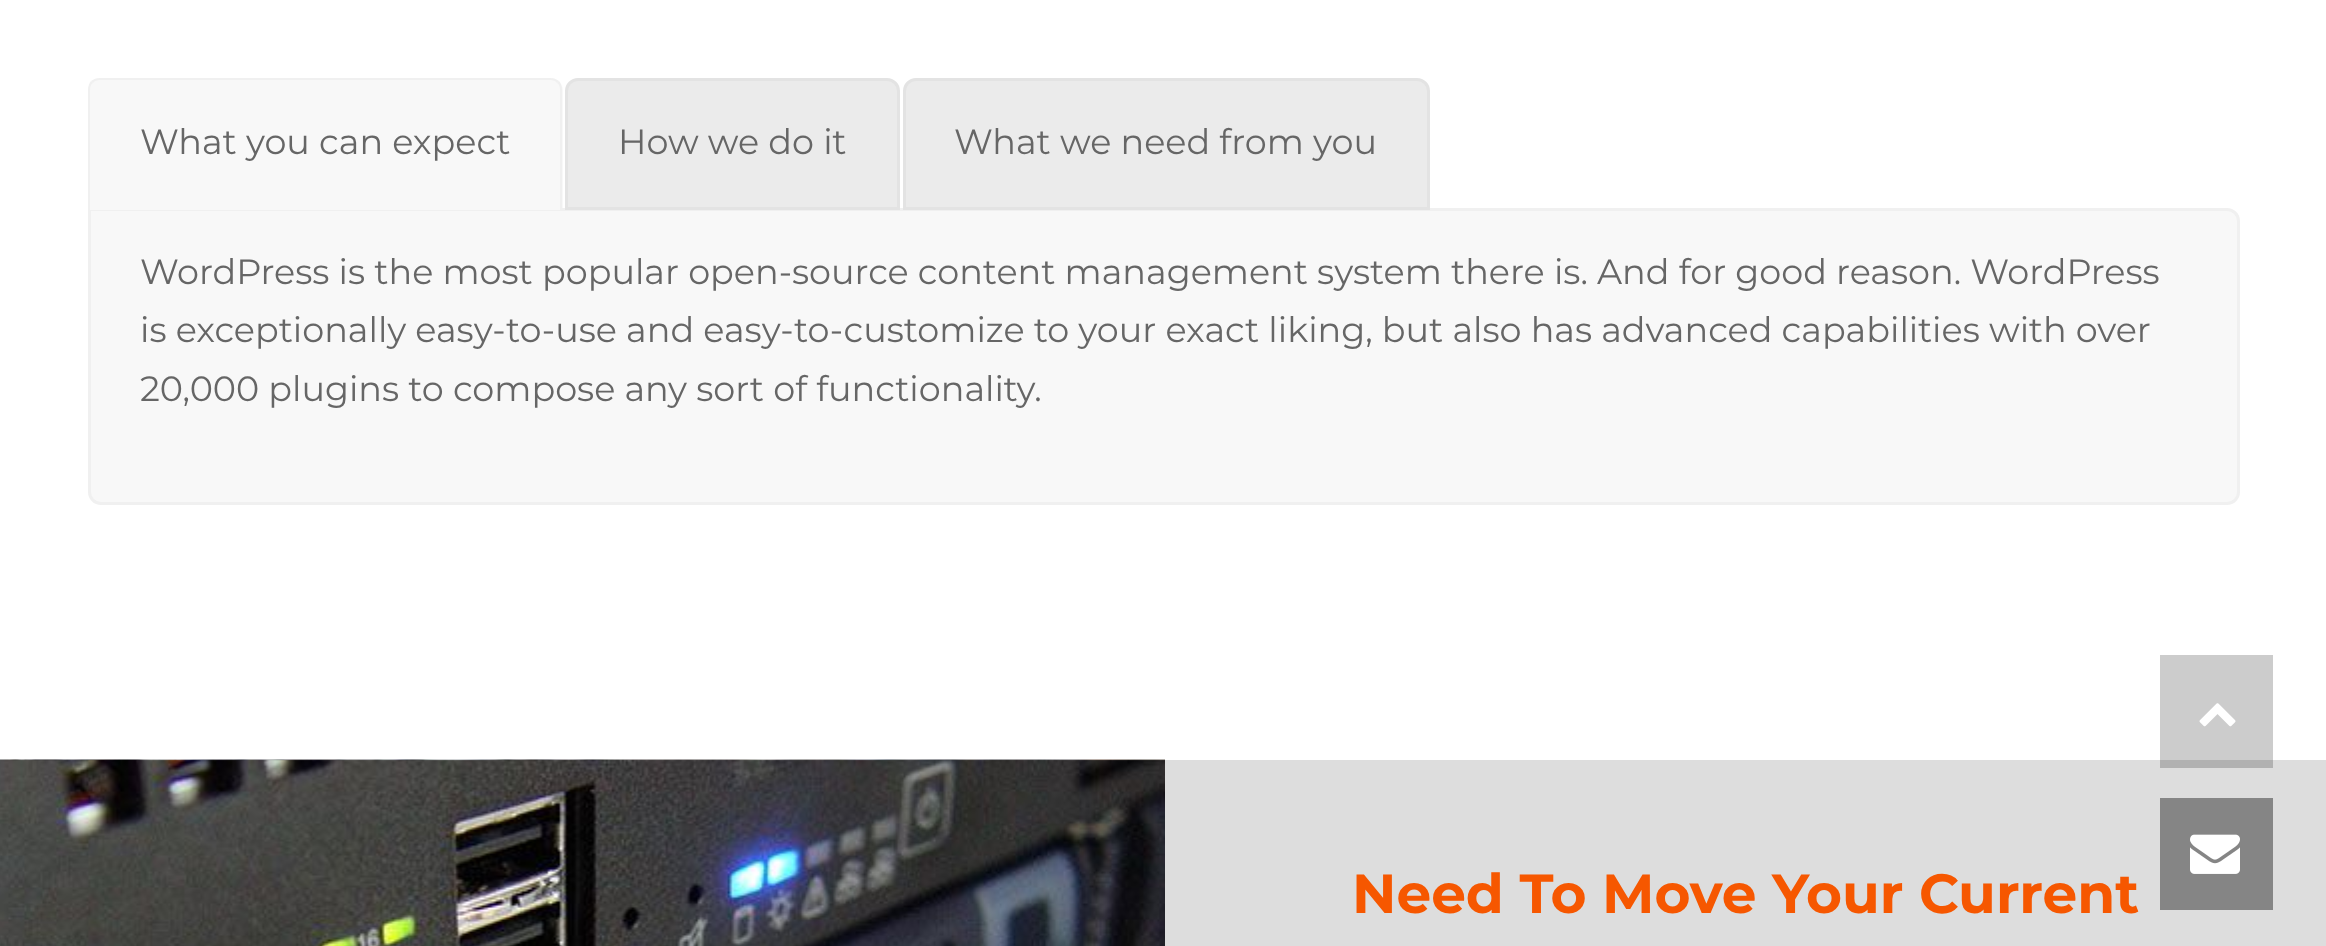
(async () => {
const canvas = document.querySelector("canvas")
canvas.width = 2326
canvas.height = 946
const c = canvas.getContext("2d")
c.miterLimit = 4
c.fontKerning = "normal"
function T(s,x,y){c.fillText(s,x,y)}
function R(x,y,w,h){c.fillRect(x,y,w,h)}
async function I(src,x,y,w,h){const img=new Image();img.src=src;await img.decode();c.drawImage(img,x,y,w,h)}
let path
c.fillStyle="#fff"
R(0,0,2326,946)
c.fillStyle="#ccc"
R(2160,655,113,105)
c.fillStyle="#f8f8f8"
c.beginPath()
c.roundRect(89.5,209.5,2149,294,[0,11.5,11.5,11.5])
c.fill()
c.strokeStyle="#f0f0f0"
c.lineWidth=3
c.stroke()
c.beginPath()
c.roundRect(88,78,475,132,[13,13,0,0])
c.fill()
c.fillStyle="#f0f0f0"
path = new Path2D("M100 78c-4 0-6 1-9 3l2 2c1-2 4-3 7-3h450c3 0 6 1 7 3l2-2c-3-2-5-3-9-3z")
c.fill(path)
path = new Path2D("M562 210v-120c0-4-1-6-3-9l-2 2c2 1 3 4 3 7v118z")
c.fill(path)
path = new Path2D("M91 81c-2 3-3 5-3 9v120l2-2v-118c0-3 1-6 3-7z")
c.fill(path)
c.font="35px Montserrat"
c.fillStyle="#666"
T("What you can expect",140,154)
c.fillStyle="#f0f0f0"
R(88,208,2,2)
R(560,208,3,2)
c.fillStyle="#ebebeb"
c.beginPath()
c.roundRect(566.5,79.5,332,129,[11.5,11.5,0,0])
c.fill()
c.strokeStyle="#e3e3e3"
c.stroke()
c.fillStyle="#666"
T("How we do it",618,154)
c.fillStyle="#ebebeb"
c.beginPath()
c.roundRect(904.5,79.5,524,129,[11.5,11.5,0,0])
c.fill()
c.stroke()
c.fillStyle="#666"
T("What we need from you",954,154)
T("WordPress is the most popular open-source content management system there is. And for good reason. WordPress",140,284)
T("is exceptionally easy-to-use and easy-to-customize to your exact liking, but also has advanced capabilities with over",140,342)
T("20,000 plugins to compose any sort of functionality.",140,401)
c.fillStyle="#ddd"
R(1165,760,1161,186)
c.fillStyle="#b1b1b1"
R(2160,760,113,8)
await I("1.png",0,759,1165,187)
c.font="bold 55px Montserrat"
c.fillStyle="#f65700"
T("Need To Move Your Current",1352,913)
await I("2.png",2199,703,37,24)
c.fillStyle="#858585"
R(2160,798,113,112)
await I("3.png",2190,834,50,40)
})()
